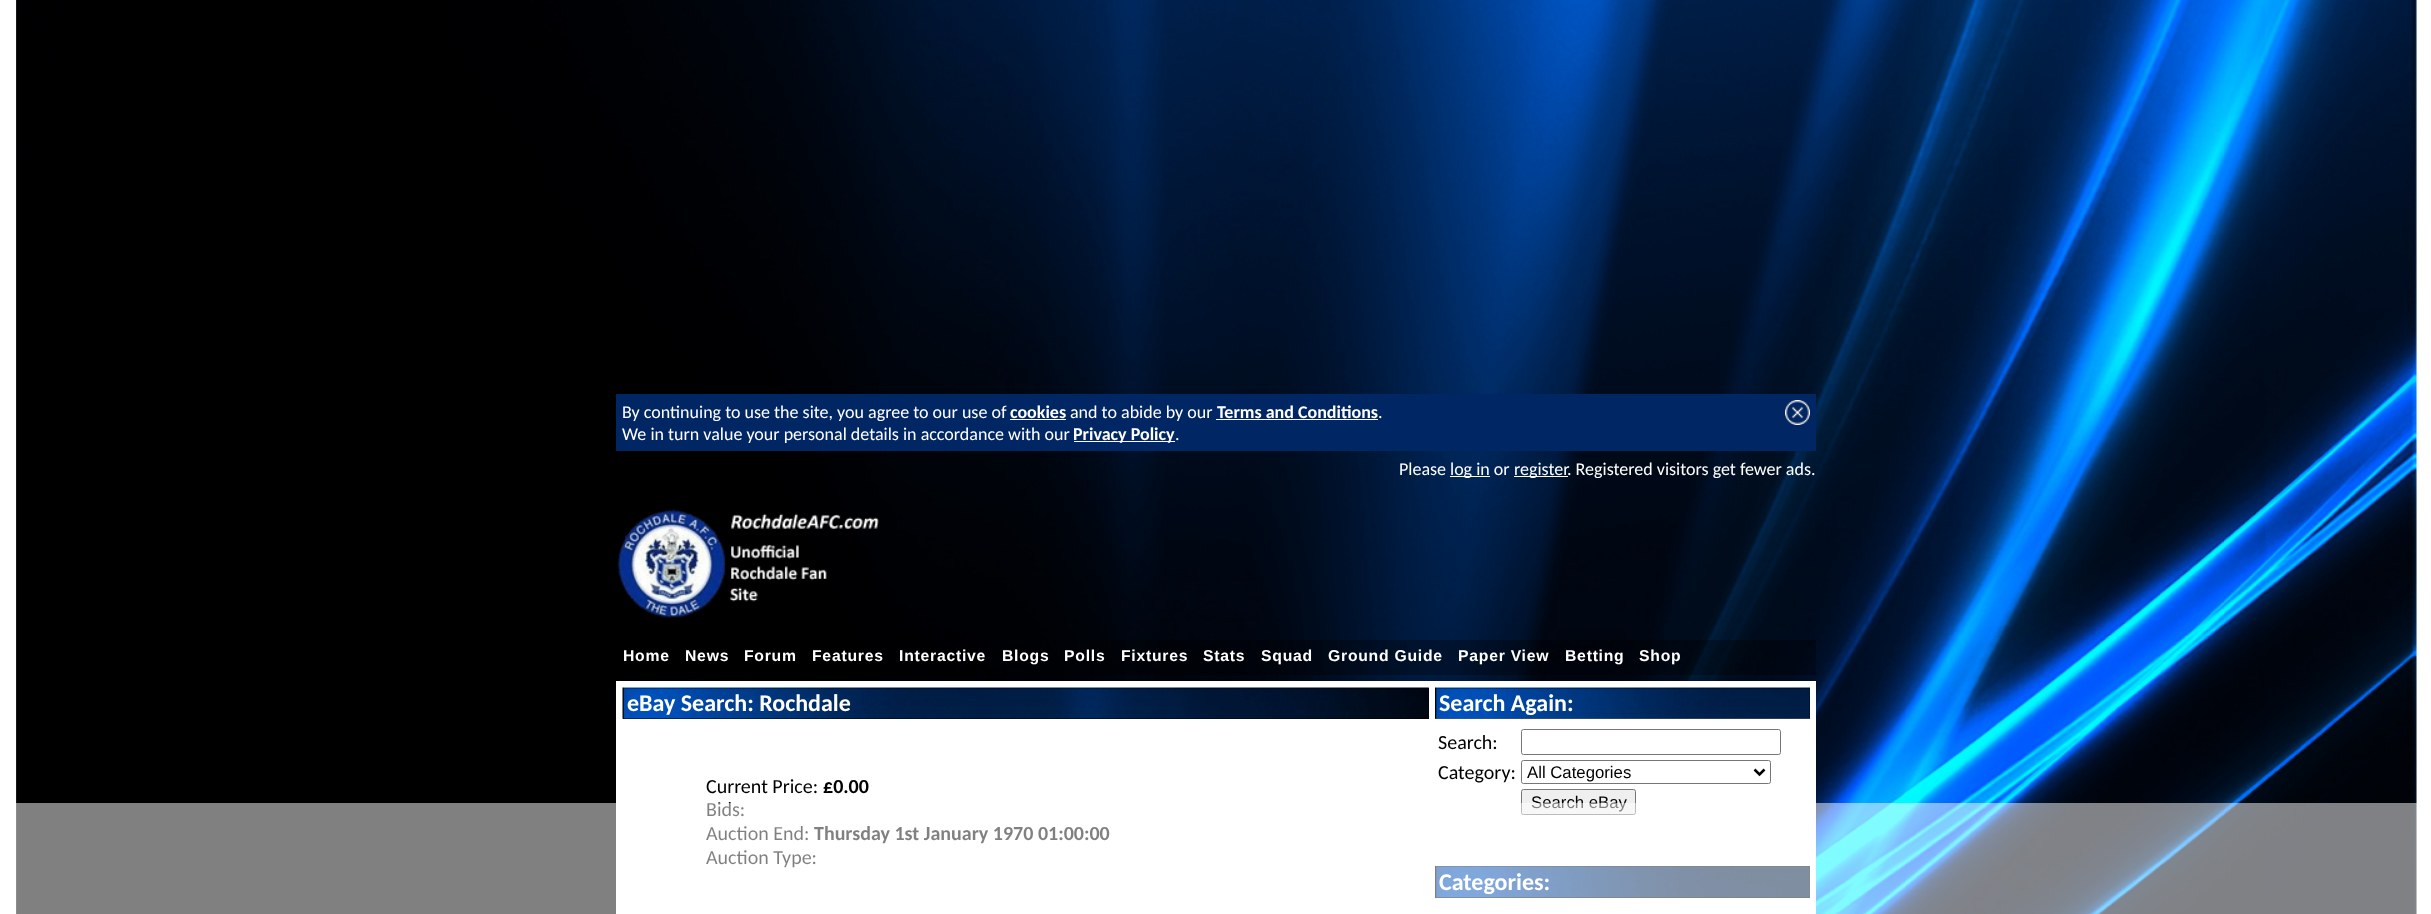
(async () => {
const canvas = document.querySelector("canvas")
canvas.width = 2431
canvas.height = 914
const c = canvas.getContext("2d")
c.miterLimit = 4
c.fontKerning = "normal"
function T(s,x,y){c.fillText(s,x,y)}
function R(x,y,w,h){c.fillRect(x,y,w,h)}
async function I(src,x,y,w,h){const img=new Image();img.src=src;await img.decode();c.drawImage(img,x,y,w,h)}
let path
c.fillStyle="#fff"
R(0,0,2431,914)
await I("1.png",16,0,2401,914)
await I("2.png",16,0,2401,914)
c.fillStyle="#002663"
R(616,394,1200,57)
c.font="18px Carlito"
c.fillStyle="#fff"
T("By continuing to use the site, you agree to our use of",622,418)
c.font="bold 18px Carlito"
T("cookies",1010,418)
R(1010,419,56,1)
c.font="18px Carlito"
T("and to abide by our",1070,418)
c.font="bold 18px Carlito"
T("Terms and Conditions",1217,418)
R(1216,419,162,1)
c.font="18px Carlito"
T(".",1378,418)
await I("3.png",1785,400,25,25)
T("We in turn value your personal details in accordance with our",622,440)
R(1074,441,101,1)
c.font="bold 18px Carlito"
T("Privacy Policy",1073,440)
c.font="18px Carlito"
T(".",1175,440)
T("Please",1399,475)
R(1450,476,40,1)
T("log in or",1450,475)
R(1514,476,54,1)
T("register",1514,475)
T(". Registered visitors get fewer ads.",1567,475)
await I("4.png",617,508,262,111)
c.fillStyle="#0000004d"
R(1090,640,726,35)
c.letterSpacing="0.75px"
c.font="bold 15.75px Liberation Sans"
c.fillStyle="#fff"
T("Home",623,661)
T("News",685,661)
T("Forum",744,661)
T("Features",812,661)
T("Interactive",899,661)
T("Blogs",1002,661)
T("Polls",1064,661)
T("Fixtures",1121,661)
T("Stats",1203,661)
T("Squad",1261,661)
T("Ground Guide",1328,661)
T("Paper View",1458,661)
T("Betting",1565,661)
T("Shop",1639,661)
R(616,681,1200,233)
c.fillStyle="#000"
R(623,688,806,31)
await I("5.png",622,687,807,32)
c.strokeStyle="#0000004d"
c.strokeRect(623.5,688.5,805,30)
c.letterSpacing="0px"
c.font="bold 24px Carlito"
c.fillStyle="#fff"
T("eBay Search: Rochdale",627,711)
c.font="20px Carlito"
c.fillStyle="#000"
T("Current Price:",706,793)
c.font="bold 20px Carlito"
T("£0.00",823,793)
c.font="20px Carlito"
T("Bids:",706,816)
T("Auction End:",706,840)
c.font="bold 20px Carlito"
T("Thursday 1st January 1970 01:00:00",814,840)
c.font="20px Carlito"
T("Auction Type:",706,864)
await I("6.png",1435,687,375,32)
c.strokeRect(1435.5,688.5,374,30)
c.font="bold 24px Carlito"
c.fillStyle="#fff"
T("Search Again:",1439,711)
c.font="20px Carlito"
c.fillStyle="#000"
T("Search:",1438,749)
c.beginPath()
c.roundRect(1521.5,729.5,259,25,2)
c.strokeStyle="#767676"
c.stroke()
T("Category:",1438,779)
c.beginPath()
c.roundRect(1521.5,760.5,249,23,2)
c.stroke()
path = new Path2D("M1754.5 769.5l5 5l5-5")
c.strokeStyle="#000"
c.lineWidth=2.5
c.stroke(path)
c.font="16.75px Liberation Sans"
T("All Categories",1527,778)
c.fillStyle="#efefef"
c.beginPath()
c.roundRect(1521.5,789.5,114,25,2)
c.fill()
c.strokeStyle="#767676"
c.lineWidth=1
c.stroke()
c.fillStyle="#000"
T("Search eBay",1531,808)
R(1435,866,375,32)
await I("7.png",1436,866,374,32)
c.strokeStyle="#0000004d"
c.strokeRect(1435.5,866.5,374,31)
c.font="bold 24px Carlito"
c.fillStyle="#fff"
T("Categories:",1439,890)
c.fillStyle="#ffffff80"
R(16,803,2401,111)
})()
